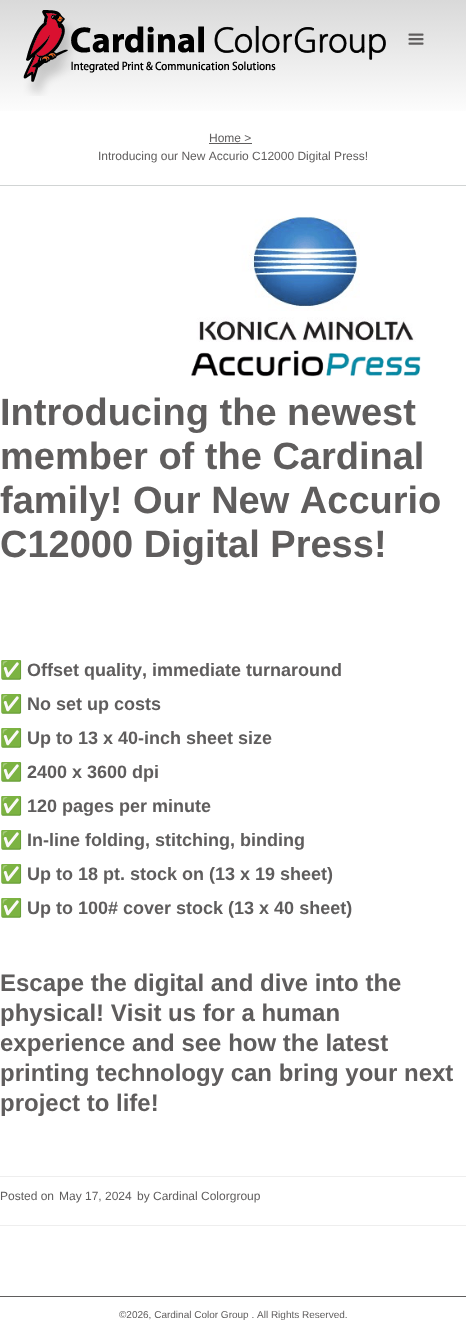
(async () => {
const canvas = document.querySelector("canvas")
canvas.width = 466
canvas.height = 1329
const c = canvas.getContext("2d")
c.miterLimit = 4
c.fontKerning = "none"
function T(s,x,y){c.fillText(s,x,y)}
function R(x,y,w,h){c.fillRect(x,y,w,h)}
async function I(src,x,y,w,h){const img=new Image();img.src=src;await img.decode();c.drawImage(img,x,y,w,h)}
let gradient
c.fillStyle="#fff"
R(0,0,466,1329)
gradient = c.createLinearGradient(233,0,233,119)
gradient.addColorStop(0,"#d9d9d9")
gradient.addColorStop(1,"#fff")
c.fillStyle = gradient
R(0,0,466,111)
await I("1.png",23,10,363,86)
await I("2.png",408,33,16,12)
c.fillStyle="#d1d4d4"
R(0,185,466,1)
c.font="12px Liberation Sans"
c.fillStyle="#5f5d5d"
T("Home >",209,142)
R(209,143,43,1)
T("Introducing our New Accurio C12000 Digital Press!",98,160)
await I("3.png",191,216,230,161)
c.font="bold 38px Liberation Sans"
T("Introducing the newest",0,425)
T("member of the Cardinal",0,469)
T("family! Our New Accurio",0,513)
T("C12000 Digital Press!",0,557)
c.font="bold 18px Noto Color Emoji"
T("✅",0,676)
c.font="bold 18px Liberation Sans"
T("Offset quality, immediate turnaround",27,676)
c.font="bold 18px Noto Color Emoji"
T("✅",0,710)
c.font="bold 18px Liberation Sans"
T("No set up costs",27,710)
c.font="bold 18px Noto Color Emoji"
T("✅",0,744)
c.font="bold 18px Liberation Sans"
T("Up to 13 x 40-inch sheet size",27,744)
c.font="bold 18px Noto Color Emoji"
T("✅",0,778)
c.font="bold 18px Liberation Sans"
T("2400 x 3600 dpi",27,778)
c.font="bold 18px Noto Color Emoji"
T("✅",0,812)
c.font="bold 18px Liberation Sans"
T("120 pages per minute",27,812)
c.font="bold 18px Noto Color Emoji"
T("✅",0,846)
c.font="bold 18px Liberation Sans"
T("In-line folding, stitching, binding",27,846)
c.font="bold 18px Noto Color Emoji"
T("✅",0,880)
c.font="bold 18px Liberation Sans"
T("Up to 18 pt. stock on (13 x 19 sheet)",27,880)
c.font="bold 18px Noto Color Emoji"
T("✅",0,914)
c.font="bold 18px Liberation Sans"
T("Up to 100# cover stock (13 x 40 sheet)",27,914)
c.font="bold 24px Liberation Sans"
T("Escape the digital and dive into the",0,991)
T("physical! Visit us for a human",0,1021)
T("experience and see how the latest",0,1051)
T("printing technology can bring your next",0,1081)
T("project to life!",0,1111)
c.fillStyle="#eee"
R(0,1176,466,1)
R(0,1225,466,1)
c.font="12px Liberation Sans"
c.fillStyle="#5f5d5d"
T("Posted on",0,1200)
T("May 17, 2024",59,1200)
T("by Cardinal Colorgroup",137,1200)
R(0,1296,466,1)
c.font="10px Liberation Sans"
T("©2026, Cardinal Color Group . All Rights Reserved.",119,1318)
})()
